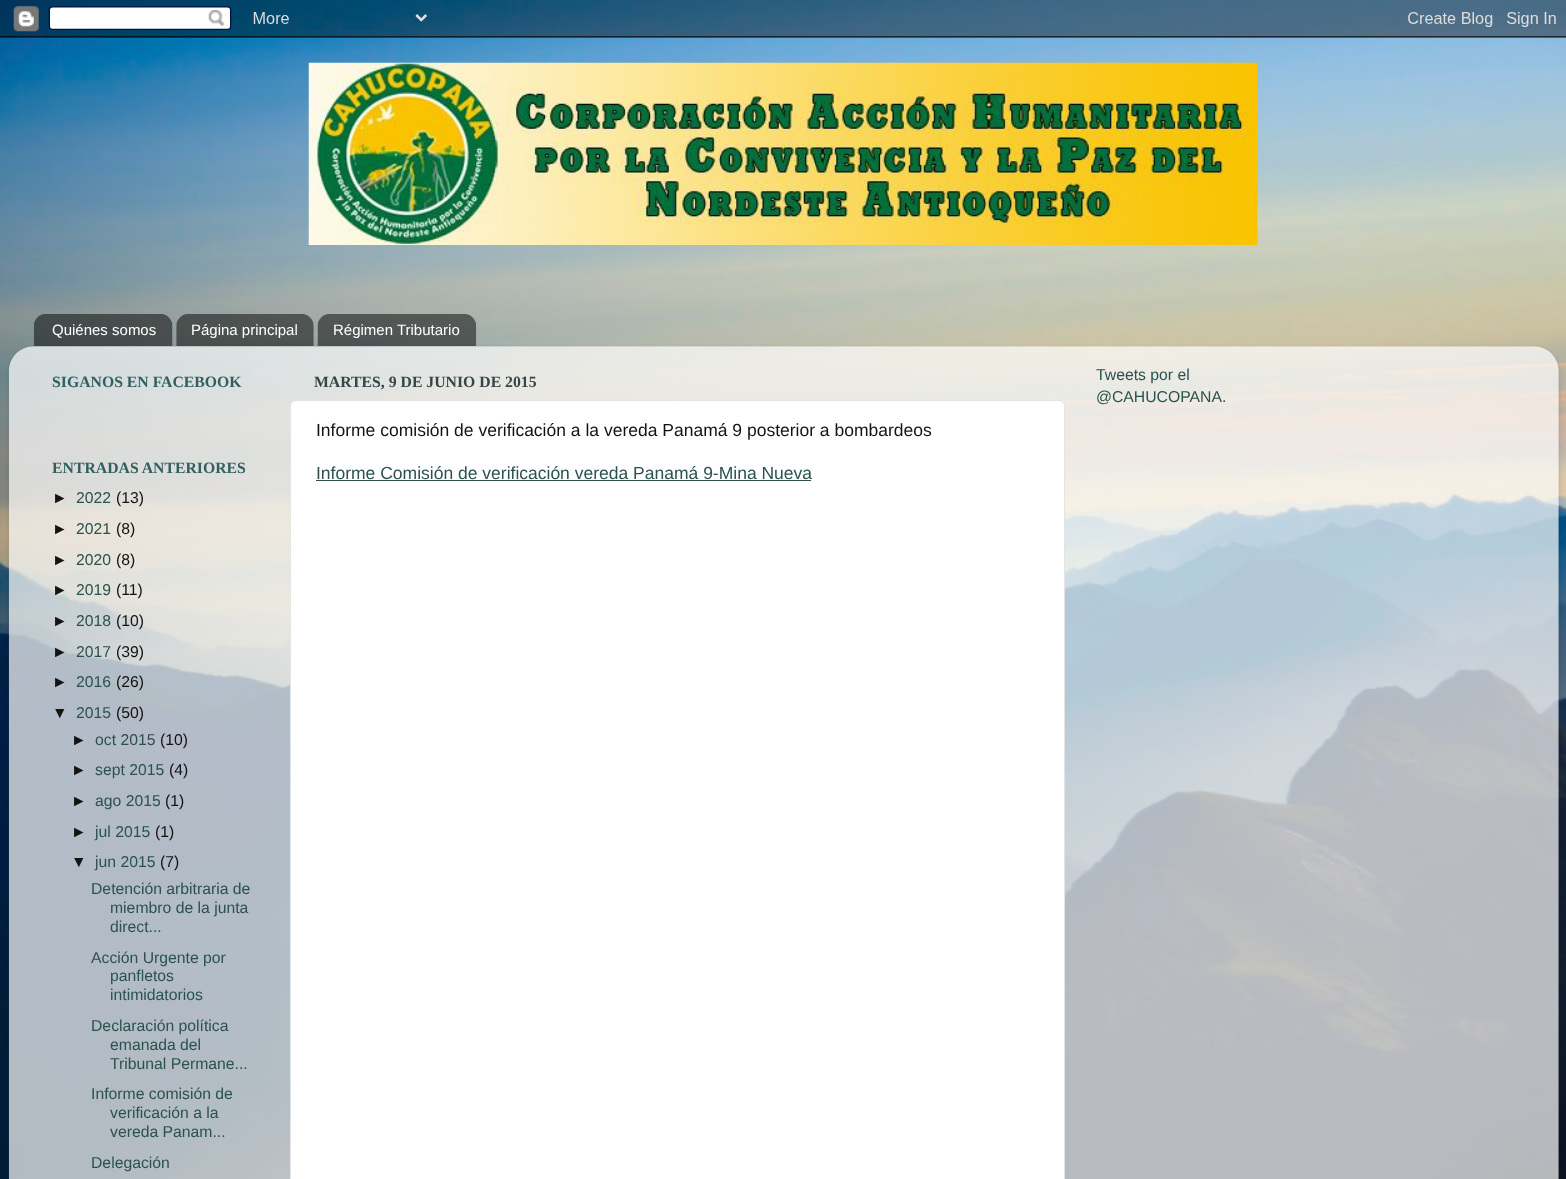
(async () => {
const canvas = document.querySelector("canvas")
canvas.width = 1566
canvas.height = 1179
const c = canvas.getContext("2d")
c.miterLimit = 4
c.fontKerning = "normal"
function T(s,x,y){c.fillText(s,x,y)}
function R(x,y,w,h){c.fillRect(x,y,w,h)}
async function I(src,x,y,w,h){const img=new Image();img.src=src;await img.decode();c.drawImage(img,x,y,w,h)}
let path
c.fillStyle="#fff"
R(0,0,1566,1179)
await I("1.png",0,0,1566,1179)
await I("2.png",0,0,1566,38)
await I("3.png",308,62,950,183)
await I("4.png",34,314,139,32)
c.font="15px Liberation Sans"
T("Quiénes somos",52,335)
await I("5.png",176,314,138,32)
T("Página principal",191,335)
await I("6.png",317,314,160,32)
T("Régimen Tributario",333,335)
c.save()
path = new Path2D("M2 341h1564v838h-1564zm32 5h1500c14 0 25 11 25 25v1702h-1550v-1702c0-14 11-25 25-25z")
c.clip(path,"evenodd")
c.fillStyle="#00000026"
c.filter="blur(2px)"
c.beginPath()
c.roundRect(9,348,1550,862,25)
c.fill()
c.filter="none"
c.restore()
await I("7.png",8,346,1551,833)
c.font="bold 15.75px Liberation Serif"
c.fillStyle="#325f5f"
T("SIGANOS EN FACEBOOK",52,387)
T("ENTRADAS ANTERIORES",52,473)
c.font="15.75px Liberation Sans"
c.fillStyle="#151212"
T("►",52,503)
c.fillStyle="#2b524e"
T("2022",76,503)
c.fillStyle="#151212"
T("(13)",116,503)
T("►",52,534)
c.fillStyle="#2b524e"
T("2021",76,534)
c.fillStyle="#151212"
T("(8)",116,534)
T("►",52,565)
c.fillStyle="#2b524e"
T("2020",76,565)
c.fillStyle="#151212"
T("(8)",116,565)
T("►",52,595)
c.fillStyle="#2b524e"
T("2019",76,595)
c.fillStyle="#151212"
T("(11)",116,595)
T("►",52,626)
c.fillStyle="#2b524e"
T("2018",76,626)
c.fillStyle="#151212"
T("(10)",116,626)
T("►",52,657)
c.fillStyle="#2b524e"
T("2017",76,657)
c.fillStyle="#151212"
T("(39)",116,657)
T("►",52,687)
c.fillStyle="#2b524e"
T("2016",76,687)
c.fillStyle="#151212"
T("(26)",116,687)
T("▼",52,718)
c.fillStyle="#2b524e"
T("2015",76,718)
c.fillStyle="#151212"
T("(50)",116,718)
T("►",71,745)
c.fillStyle="#2b524e"
T("oct 2015",95,745)
c.fillStyle="#151212"
T("(10)",160,745)
T("►",71,775)
c.fillStyle="#2b524e"
T("sept 2015",95,775)
c.fillStyle="#151212"
T("(4)",169,775)
T("►",71,806)
c.fillStyle="#2b524e"
T("ago 2015",95,806)
c.fillStyle="#151212"
T("(1)",165,806)
T("►",71,837)
c.fillStyle="#2b524e"
T("jul 2015",95,837)
c.fillStyle="#151212"
T("(1)",155,837)
T("▼",71,867)
c.fillStyle="#2b524e"
T("jun 2015",95,867)
c.fillStyle="#151212"
T("(7)",160,867)
c.fillStyle="#2b524e"
T("Detención arbitraria de",91,894)
T("miembro de la junta",110,913)
T("direct...",110,932)
T("Acción Urgente por",91,963)
T("panfletos",110,981)
T("intimidatorios",110,1000)
T("Declaración política",91,1031)
T("emanada del",110,1050)
T("Tribunal Permane...",110,1069)
T("Informe comisión de",91,1099)
T("verificación a la",110,1118)
T("vereda Panam...",110,1137)
T("Delegación",91,1168)
c.font="bold 15.75px Liberation Serif"
c.fillStyle="#344646"
T("MARTES, 9 DE JUNIO DE 2015",314,387)
c.fillStyle="#fff"
c.beginPath()
c.roundRect(290.5,400.5,774,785,5.5)
c.fill()
c.strokeStyle="#e4e4e4"
c.stroke()
c.font="17.5px Liberation Sans"
c.fillStyle="#151212"
T("Informe comisión de verificación a la vereda Panamá 9 posterior a bombardeos",316,436)
c.fillStyle="#2b524e"
T("Informe Comisión de verificación vereda Panamá 9-Mina Nueva",316,479)
R(316,480,495,1)
c.font="15.75px Liberation Sans"
T("Tweets por el",1096,380)
T("@CAHUCOPANA.",1096,402)
})()
